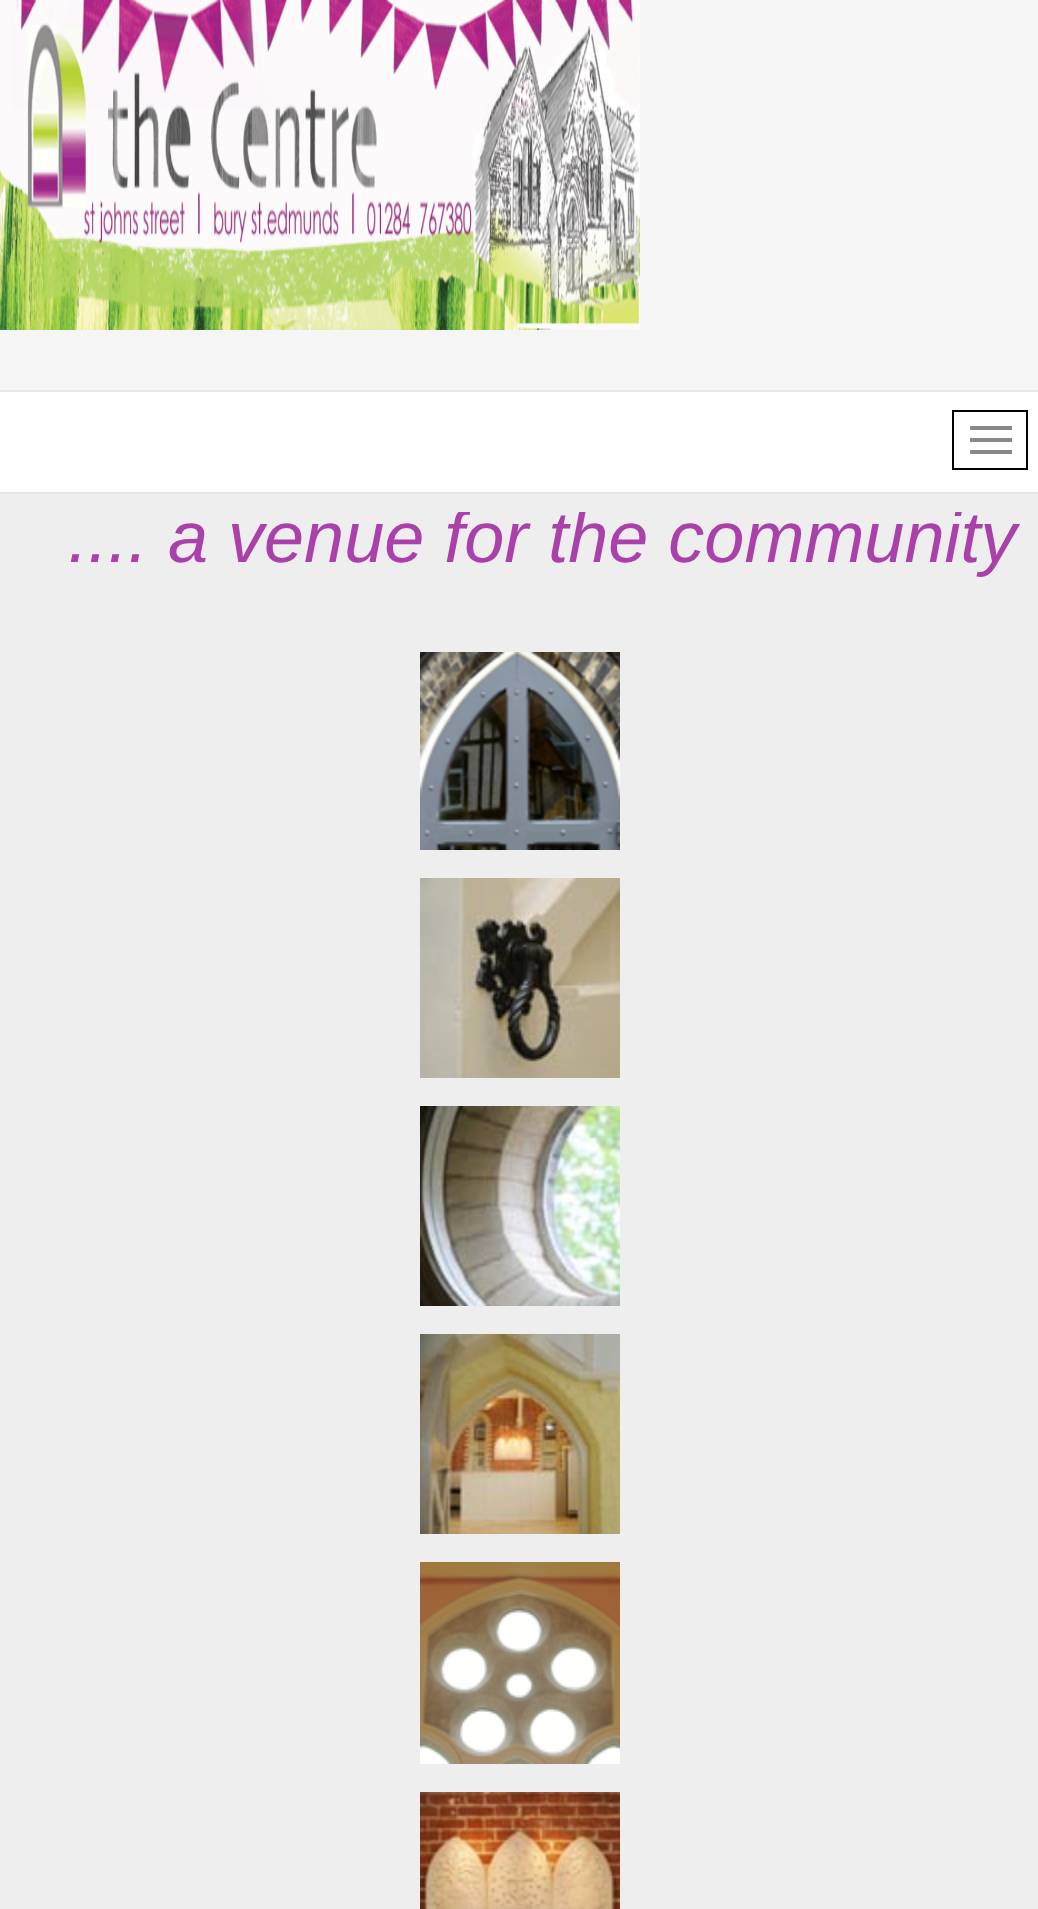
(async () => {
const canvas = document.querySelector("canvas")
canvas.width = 1038
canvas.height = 1909
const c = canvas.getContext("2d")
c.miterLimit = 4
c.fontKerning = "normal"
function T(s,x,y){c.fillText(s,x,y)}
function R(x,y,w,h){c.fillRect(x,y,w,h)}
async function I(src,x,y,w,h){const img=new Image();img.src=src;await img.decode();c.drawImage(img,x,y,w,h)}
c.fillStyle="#eee"
R(0,0,1038,1909)
c.fillStyle="#f5f5f5"
R(0,0,1038,390)
await I("1.png",0,0,640,330)
c.fillStyle="#fff"
R(0,392,1038,100)
c.fillStyle="#e7e7e7"
R(0,390,1038,2)
R(0,492,1038,2)
c.strokeStyle="#000"
c.lineWidth=2
c.strokeRect(953,411,74,58)
c.fillStyle="#888"
R(970,426,42,4)
R(970,438,42,4)
R(970,450,42,4)
c.save()
c.beginPath()
c.rect(12,512,1014,66)
c.clip()
c.font="italic 72px Liberation Sans"
c.fillStyle="#aa40aa"
T(".... a venue for the community",68,562)
c.restore()
await I("2.png",420,652,200,198)
await I("3.png",420,878,200,200)
await I("4.png",420,1106,200,200)
await I("5.png",420,1334,200,200)
await I("6.png",420,1562,200,202)
await I("7.png",420,1792,200,117)
})()
